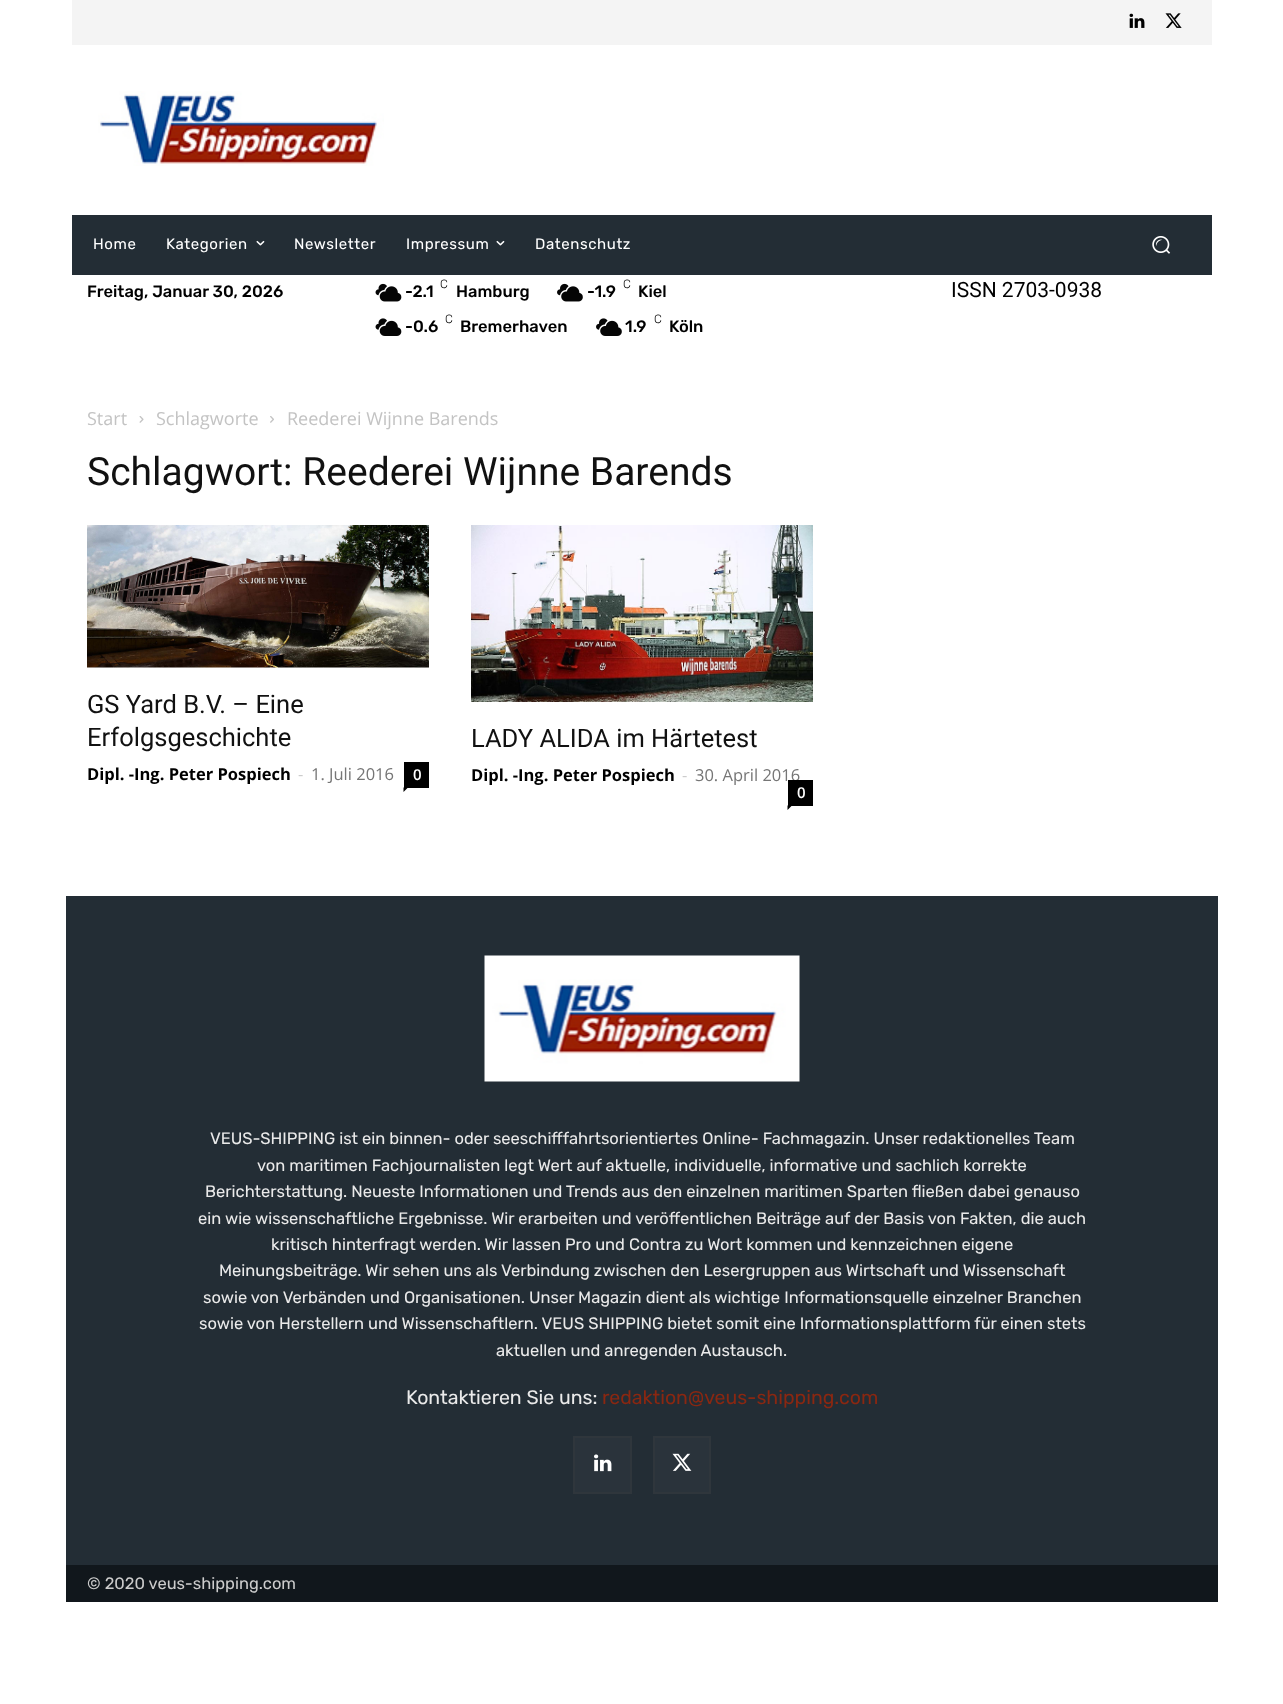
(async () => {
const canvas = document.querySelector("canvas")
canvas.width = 1283
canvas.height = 1704
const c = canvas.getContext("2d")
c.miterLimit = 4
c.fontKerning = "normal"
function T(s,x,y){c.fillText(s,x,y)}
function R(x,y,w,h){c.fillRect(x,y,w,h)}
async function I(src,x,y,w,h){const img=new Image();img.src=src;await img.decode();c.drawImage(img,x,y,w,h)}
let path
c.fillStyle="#fff"
R(0,0,1283,1704)
c.fillStyle="#f4f4f4"
R(72,0,1140,45)
await I("1.png",1129,13,16,15)
await I("2.png",1165,13,17,15)
await I("3.png",98,91,286,75)
c.fillStyle="#232d35"
R(72,215,1140,60)
c.letterSpacing="0.6px"
c.font="15px Rubik"
c.fillStyle="#fff"
T("Home",93,249)
T("Kategorien",166,249)
await I("4.png",256,240,9,6)
T("Newsletter",294,249)
T("Impressum",406,249)
await I("4.png",496,240,9,6)
T("Datenschutz",535,249)
await I("5.png",1152,236,19,18)
c.letterSpacing="0px"
c.font="500 16.5px Rubik"
c.fillStyle="#000"
T("Freitag, Januar 30, 2026",87,297)
await I("6.png",375,283,27,19)
c.font="300 12px Rubik"
T("C",440,288)
c.font="500 16.5px Rubik"
T("-2.1",405,297)
T("Hamburg",456,297)
await I("7.png",557,283,26,19)
c.font="300 12px Rubik"
T("C",623,288)
c.font="500 16.5px Rubik"
T("-1.9",587,297)
T("Kiel",638,297)
await I("8.png",375,318,27,18)
c.font="300 12px Rubik"
T("C",445,323)
c.font="500 16.5px Rubik"
T("-0.6",405,332)
T("Bremerhaven",460,332)
await I("9.png",596,318,26,18)
c.font="300 12px Rubik"
T("C",654,323)
c.font="500 16.5px Rubik"
T("1.9",625,332)
T("Köln",669,332)
c.font="21px Roboto"
T("ISSN 2703-0938",951,297)
c.font="18px Open Sans"
c.fillStyle="#c3c3c3"
T("Start",87,425)
await I("10.png",139,416,5,7)
T("Schlagworte",156,425)
await I("11.png",270,416,4,7)
T("Reederei Wijnne Barends",287,425)
c.font="39px Roboto"
c.fillStyle="#111"
T("Schlagwort: Reederei Wijnne Barends",87,485)
await I("12.png",87,525,342,143)
c.font="25.5px Roboto"
T("GS Yard B.V. – Eine",87,713)
T("Erfolgsgeschichte",87,746)
c.font="bold 16.5px Open Sans"
c.fillStyle="#000"
T("Dipl. -Ing. Peter Pospiech",87,780)
c.font="16.5px Open Sans"
c.fillStyle="#ccc"
T("-",298,780)
c.fillStyle="#767676"
T("1. Juli 2016",311,780)
c.fillStyle="#000"
R(404,762,25,26)
c.font="600 15px Open Sans"
c.fillStyle="#fff"
T("0",413,780)
c.fillStyle="#000"
path = new Path2D("M403.5 787.5h4.5l-4.5 4.5z")
c.fill(path)
await I("13.png",471,525,342,177)
c.font="25.5px Roboto"
c.fillStyle="#111"
T("LADY ALIDA im Härtetest",471,747)
c.font="bold 16.5px Open Sans"
c.fillStyle="#000"
T("Dipl. -Ing. Peter Pospiech",471,781)
c.font="16.5px Open Sans"
c.fillStyle="#ccc"
T("-",682,781)
c.fillStyle="#767676"
T("30. April 2016",695,781)
c.fillStyle="#000"
R(788,780,25,26)
c.font="600 15px Open Sans"
c.fillStyle="#fff"
T("0",797,798)
c.fillStyle="#000"
path = new Path2D("M787.5 805.5h4.5l-4.5 4.5z")
c.fill(path)
c.fillStyle="#232d35"
R(66,896,1152,669)
await I("14.png",484,955,316,127)
c.font="16.5px Rubik"
c.fillStyle="#eaeaea"
T("VEUS-SHIPPING ist ein binnen- oder seeschifffahrtsorientiertes Online- Fachmagazin. Unser redaktionelles Team",210,1144)
T("von maritimen Fachjournalisten legt Wert auf aktuelle, individuelle, informative und sachlich korrekte",257,1171)
T("Berichterstattung. Neueste Informationen und Trends aus den einzelnen maritimen Sparten fließen dabei genauso",205,1197)
T("ein wie wissenschaftliche Ergebnisse. Wir erarbeiten und veröffentlichen Beiträge auf der Basis von Fakten, die auch",198,1224)
T("kritisch hinterfragt werden. Wir lassen Pro und Contra zu Wort kommen und kennzeichnen eigene",271,1250)
T("Meinungsbeiträge. Wir sehen uns als Verbindung zwischen den Lesergruppen aus Wirtschaft und Wissenschaft",219,1276)
T("sowie von Verbänden und Organisationen. Unser Magazin dient als wichtige Informationsquelle einzelner Branchen",203,1303)
T("sowie von Herstellern und Wissenschaftlern. VEUS SHIPPING bietet somit eine Informationsplattform für einen stets",199,1329)
T("aktuellen und anregenden Austausch.",496,1356)
c.font="19.5px Rubik"
T("Kontaktieren Sie uns:",406,1404)
c.fillStyle="#8a2711"
T("redaktion@veus-shipping.com",602,1404)
c.fillStyle="#2a333b"
c.beginPath()
c.rect(574,1437,57,56)
c.fill()
c.strokeStyle="#2f363c"
c.lineWidth=2
c.stroke()
await I("15.png",594,1454,18,18)
c.beginPath()
c.rect(654,1437,56,56)
c.fill()
c.stroke()
await I("16.png",672,1453,20,18)
c.fillStyle="#11171c"
R(66,1565,1152,37)
c.font="16.5px Rubik"
c.fillStyle="#ccc"
T("© 2020 veus-shipping.com",87,1589)
})()
